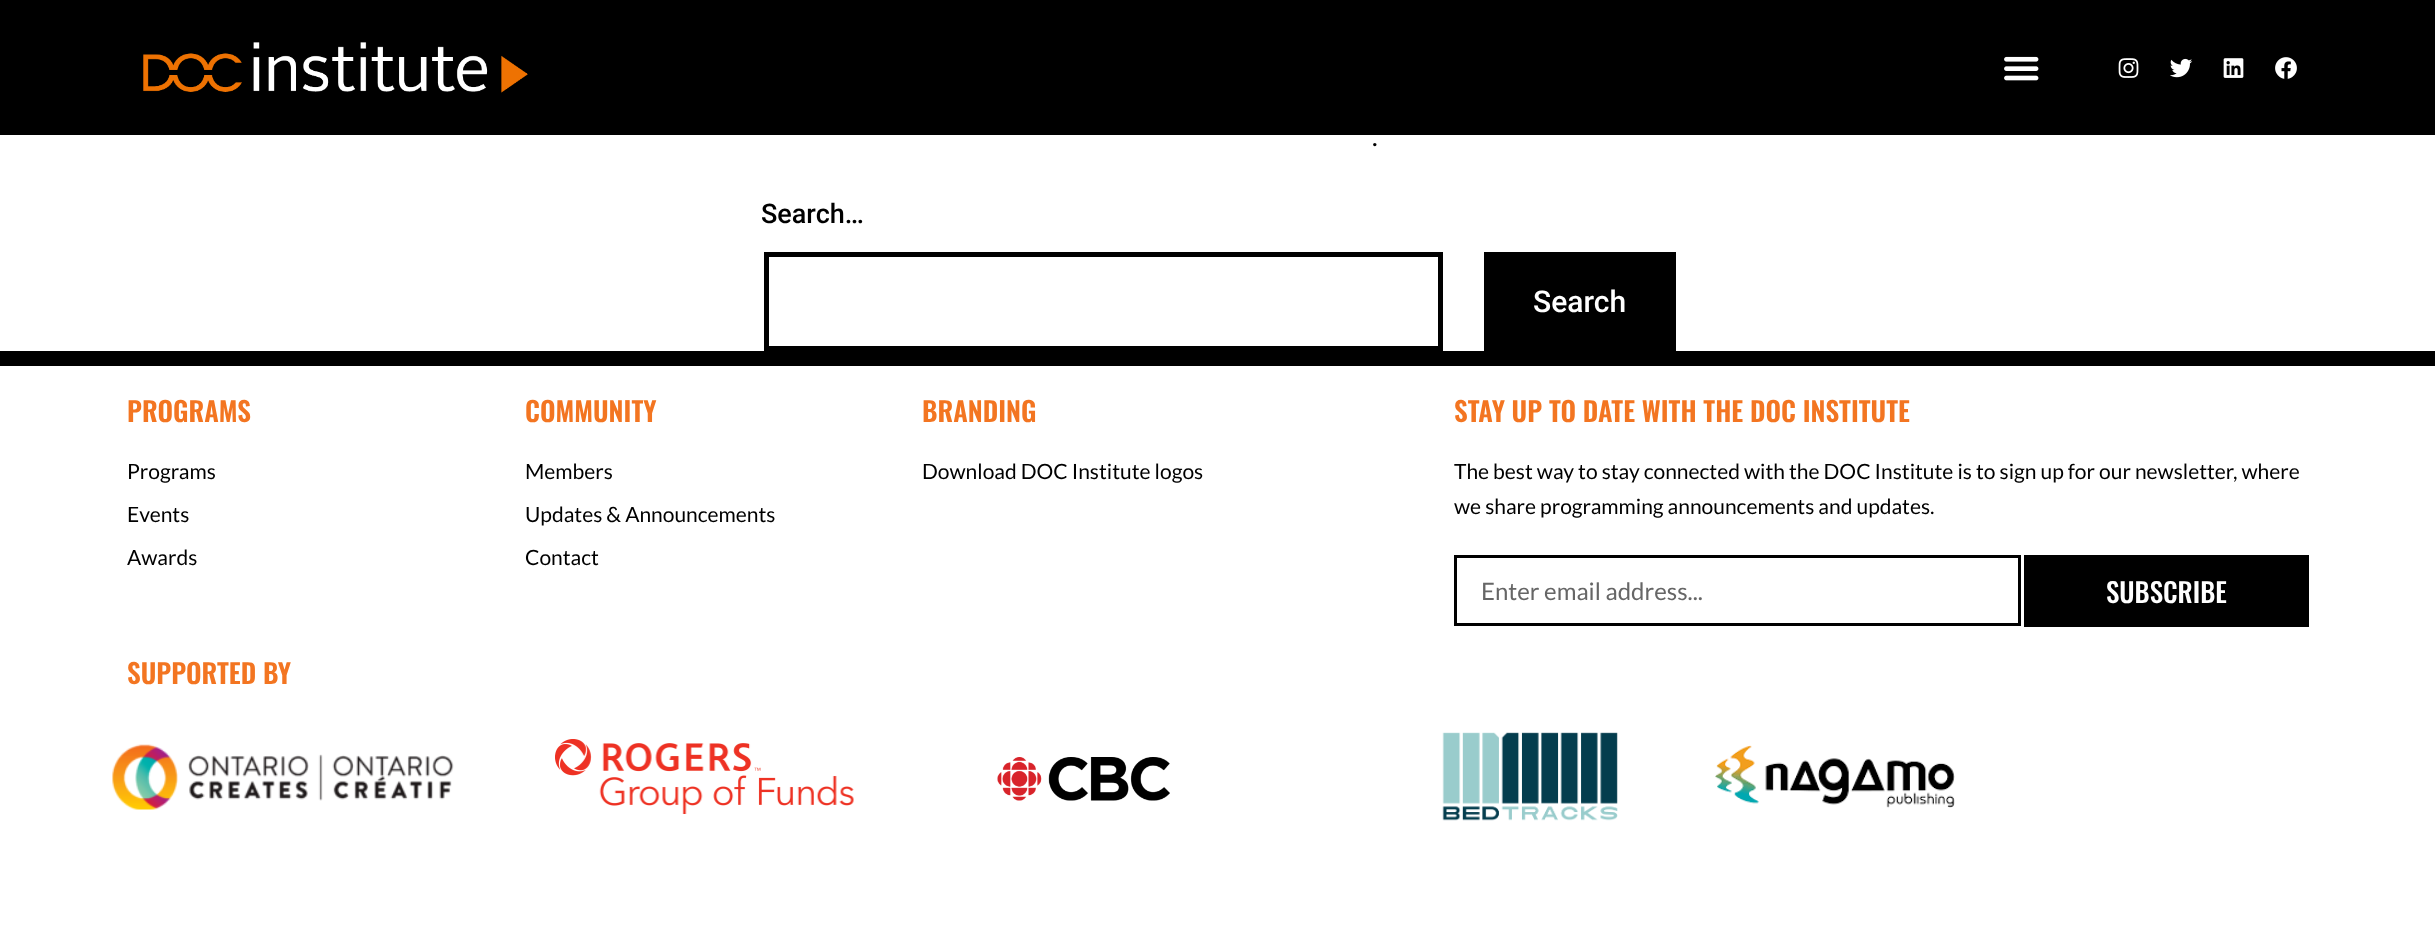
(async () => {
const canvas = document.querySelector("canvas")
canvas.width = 2435
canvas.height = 939
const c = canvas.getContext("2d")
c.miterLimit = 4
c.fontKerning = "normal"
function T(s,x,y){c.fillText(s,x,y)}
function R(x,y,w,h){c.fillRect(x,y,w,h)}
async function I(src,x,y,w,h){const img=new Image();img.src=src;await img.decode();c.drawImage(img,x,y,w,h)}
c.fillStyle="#fff"
R(0,0,2435,939)
c.fillStyle="#000"
R(0,0,2435,135)
await I("1.png",143,42,385,51)
await I("2.png",2004,56,35,25)
await I("3.png",2118,58,21,20)
await I("4.png",2170,58,23,20)
await I("5.png",2223,58,21,20)
await I("6.png",2275,57,22,22)
c.font="30px Roboto"
T(".",1371,146)
c.font="500 27px Roboto"
T("Search…",761,223)
c.strokeStyle="#000"
c.lineWidth=5
c.strokeRect(766.5,254.5,674,94)
R(1484,252,192,99)
c.font="500 30px Roboto"
c.fillStyle="#fff"
T("Search",1533,312)
c.fillStyle="#000"
R(0,351,2435,15)
c.font="600 27px Oswald"
c.fillStyle="#f37521"
T("PROGRAMS",127,422)
c.font="21px Lato"
c.fillStyle="#000"
T("Programs",127,479)
T("Events",127,522)
T("Awards",127,565)
c.font="600 27px Oswald"
c.fillStyle="#f37521"
T("COMMUNITY",525,422)
c.font="21px Lato"
c.fillStyle="#000"
T("Members",525,479)
T("Updates & Announcements",525,522)
T("Contact",525,565)
c.font="600 27px Oswald"
c.fillStyle="#f37521"
T("BRANDING",922,422)
c.font="21px Lato"
c.fillStyle="#000"
T("Download DOC Institute logos",922,479)
c.font="600 27px Oswald"
c.fillStyle="#f37521"
T("STAY UP TO DATE WITH THE DOC INSTITUTE",1454,422)
c.font="21px Lato"
c.fillStyle="#000"
T("The best way to stay connected with the DOC Institute is to sign up for our newsletter, where",1454,479)
T("we share programming announcements and updates.",1454,514)
c.lineWidth=3
c.strokeRect(1455.5,556.5,564,68)
c.font="24px Lato"
c.fillStyle="#666"
T("Enter email address...",1481,600)
c.fillStyle="#000"
R(2024,555,285,72)
c.font="500 27px Oswald"
c.fillStyle="#fff"
T("SUBSCRIBE",2106,603)
c.font="600 27px Oswald"
c.fillStyle="#f37521"
T("SUPPORTED BY",127,684)
await I("7.png",112,744,342,66)
await I("8.png",555,739,299,75)
await I("9.png",997,757,173,44)
await I("10.png",1442,732,176,89)
await I("11.png",1715,745,240,63)
})()
